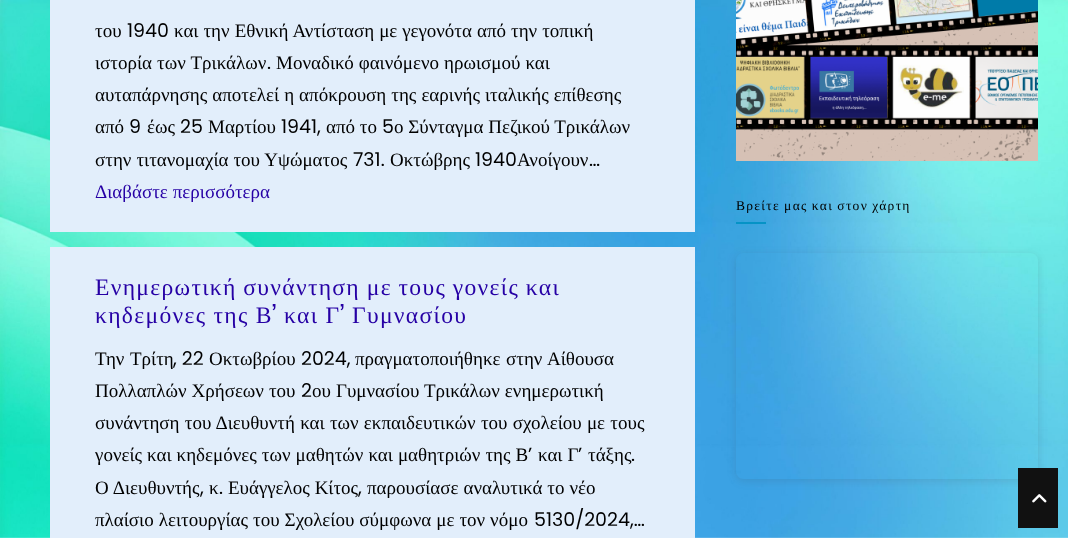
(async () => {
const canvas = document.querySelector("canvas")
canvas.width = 1068
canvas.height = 538
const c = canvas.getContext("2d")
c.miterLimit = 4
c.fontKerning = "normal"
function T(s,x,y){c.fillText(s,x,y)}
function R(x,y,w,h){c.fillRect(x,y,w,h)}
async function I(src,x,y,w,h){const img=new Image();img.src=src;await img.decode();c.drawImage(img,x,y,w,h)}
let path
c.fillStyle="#fff"
R(0,0,1068,538)
await I("1.png",0,0,1068,538)
c.fillStyle="#e2eefb"
R(50,0,645,232)
c.font="19px Liberation Serif"
c.fillStyle="#000"
T("του",95,37)
c.font="19px Poppins"
T("1940",127,37)
c.wordSpacing="0.25px"
c.font="19px Liberation Serif"
T("και την Εθνική Αντίσταση με γεγονότα από την τοπική",174,37)
T("ιστορία των Τρικάλων",95,69)
c.wordSpacing="0px"
c.font="19px Poppins"
T(".",267,69)
c.wordSpacing="0.25px"
c.font="19px Liberation Serif"
T("Μοναδικό φαινόμενο ηρωισμού και",276,69)
T("αυταπάρνησης αποτελεί η απόκρουση της εαρινής ιταλικής επίθεσης",95,101)
c.wordSpacing="0px"
T("από",95,133)
c.font="19px Poppins"
T("9",129,133)
c.font="19px Liberation Serif"
T("έως",147,133)
c.font="19px Poppins"
T("25",180,133)
c.font="19px Liberation Serif"
T("Μαρτίου",208,133)
c.font="19px Poppins"
T("1941,",281,133)
c.font="19px Liberation Serif"
T("από το",326,133)
c.font="19px Poppins"
T("5",382,133)
c.font="19px Liberation Serif"
T("ο Σύνταγμα Πεζικού Τρικάλων",394,133)
c.wordSpacing="0.25px"
T("στην τιτανομαχία του Υψώματος",95,166)
c.wordSpacing="0px"
c.font="19px Poppins"
T("731.",353,166)
c.font="19px Liberation Serif"
T("Οκτώβρης",390,166)
c.font="19px Poppins"
T("1940",475,166)
c.font="19px Liberation Serif"
T("Ανοίγουν",517,166)
c.font="19px Poppins"
T("…",589,166)
c.wordSpacing="0.25px"
c.font="19px Liberation Serif"
c.fillStyle="#2600a5"
T("Διαβάστε περισσότερα",95,198)
c.fillStyle="#e2eefb"
R(50,247,645,291)
c.letterSpacing="1.3px"
c.wordSpacing="-0.5px"
c.font="23.6px Liberation Serif"
c.fillStyle="#2600a5"
T("Ενημερωτική συνάντηση με τους γονείς και",95,295)
c.wordSpacing="0px"
T("κηδεμόνες της Β",95,323)
c.font="23.6px Oswald"
T("’",272,323)
c.font="23.6px Liberation Serif"
T("και Γ",284,323)
c.font="23.6px Oswald"
T("’",340,323)
c.font="23.6px Liberation Serif"
T("Γυμνασίου",352,323)
c.letterSpacing="0px"
c.font="19px Liberation Serif"
c.fillStyle="#000"
T("Την",95,365)
T("Τρίτη",130,365)
c.font="19px Poppins"
T(", 22",173,365)
c.font="19px Liberation Serif"
T("Οκτωβρίου",209,365)
c.font="19px Poppins"
T("2024,",301,365)
c.font="19px Liberation Serif"
T("πραγματοποιήθηκε",355,365)
T("στην",506,365)
T("Αίθουσα",547,365)
c.wordSpacing="0.25px"
T("Πολλαπλών Χρήσεων του",95,397)
c.wordSpacing="0px"
c.font="19px Poppins"
T("2",301,397)
c.wordSpacing="0.25px"
c.font="19px Liberation Serif"
T("ου Γυμνασίου Τρικάλων ενημερωτική",312,397)
c.wordSpacing="0.5px"
T("συνάντηση του Διευθυντή και των εκπαιδευτικών του σχολείου με τους",95,429)
c.wordSpacing="0.25px"
T("γονείς και κηδεμόνες των μαθητών και μαθητριών της Β",95,461)
c.wordSpacing="0px"
c.font="19px Poppins"
T("’",528,461)
c.wordSpacing="0.25px"
c.font="19px Liberation Serif"
T("και Γ",538,461)
c.wordSpacing="0px"
c.font="19px Poppins"
T("’",578,461)
c.font="19px Liberation Serif"
T("τάξης",588,461)
c.font="19px Poppins"
T(".",631,461)
c.wordSpacing="0.25px"
c.font="19px Liberation Serif"
T("Ο Διευθυντής",95,494)
c.wordSpacing="0px"
c.font="19px Poppins"
T(",",200,494)
c.font="19px Liberation Serif"
T("κ",209,494)
c.font="19px Poppins"
T(".",219,494)
c.wordSpacing="0.25px"
c.font="19px Liberation Serif"
T("Ευάγγελος Κίτος",228,494)
c.wordSpacing="0px"
c.font="19px Poppins"
T(",",358,494)
c.wordSpacing="0.25px"
c.font="19px Liberation Serif"
T("παρουσίασε αναλυτικά το νέο",367,494)
T("πλαίσιο λειτουργίας του Σχολείου σύμφωνα με τον νόμο",95,526)
c.wordSpacing="0px"
c.font="19px Poppins"
T("5130/2024,…",534,526)
await I("2.png",736,0,302,161)
c.letterSpacing="1.3px"
c.wordSpacing="-0.5px"
c.font="13.5px Liberation Serif"
T("Βρείτε μας και στον χάρτη",736,210)
c.fillStyle="#0593c6"
R(736,222,30,2)
c.save()
path = new Path2D("M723 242h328v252h-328zm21 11h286c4.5 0 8 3.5 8 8v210c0 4.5-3.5 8-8 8h-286c-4.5 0-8-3.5-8-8v-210c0-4.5 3.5-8 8-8z")
c.clip(path,"evenodd")
c.fillStyle="#3f455129"
c.filter="blur(4px)"
c.beginPath()
c.roundRect(736,255,302,226,8)
c.fill()
c.filter="none"
c.restore()
c.fillStyle="#111"
R(1018,468,40,60)
await I("3.png",1032,494,15,9)
})()
